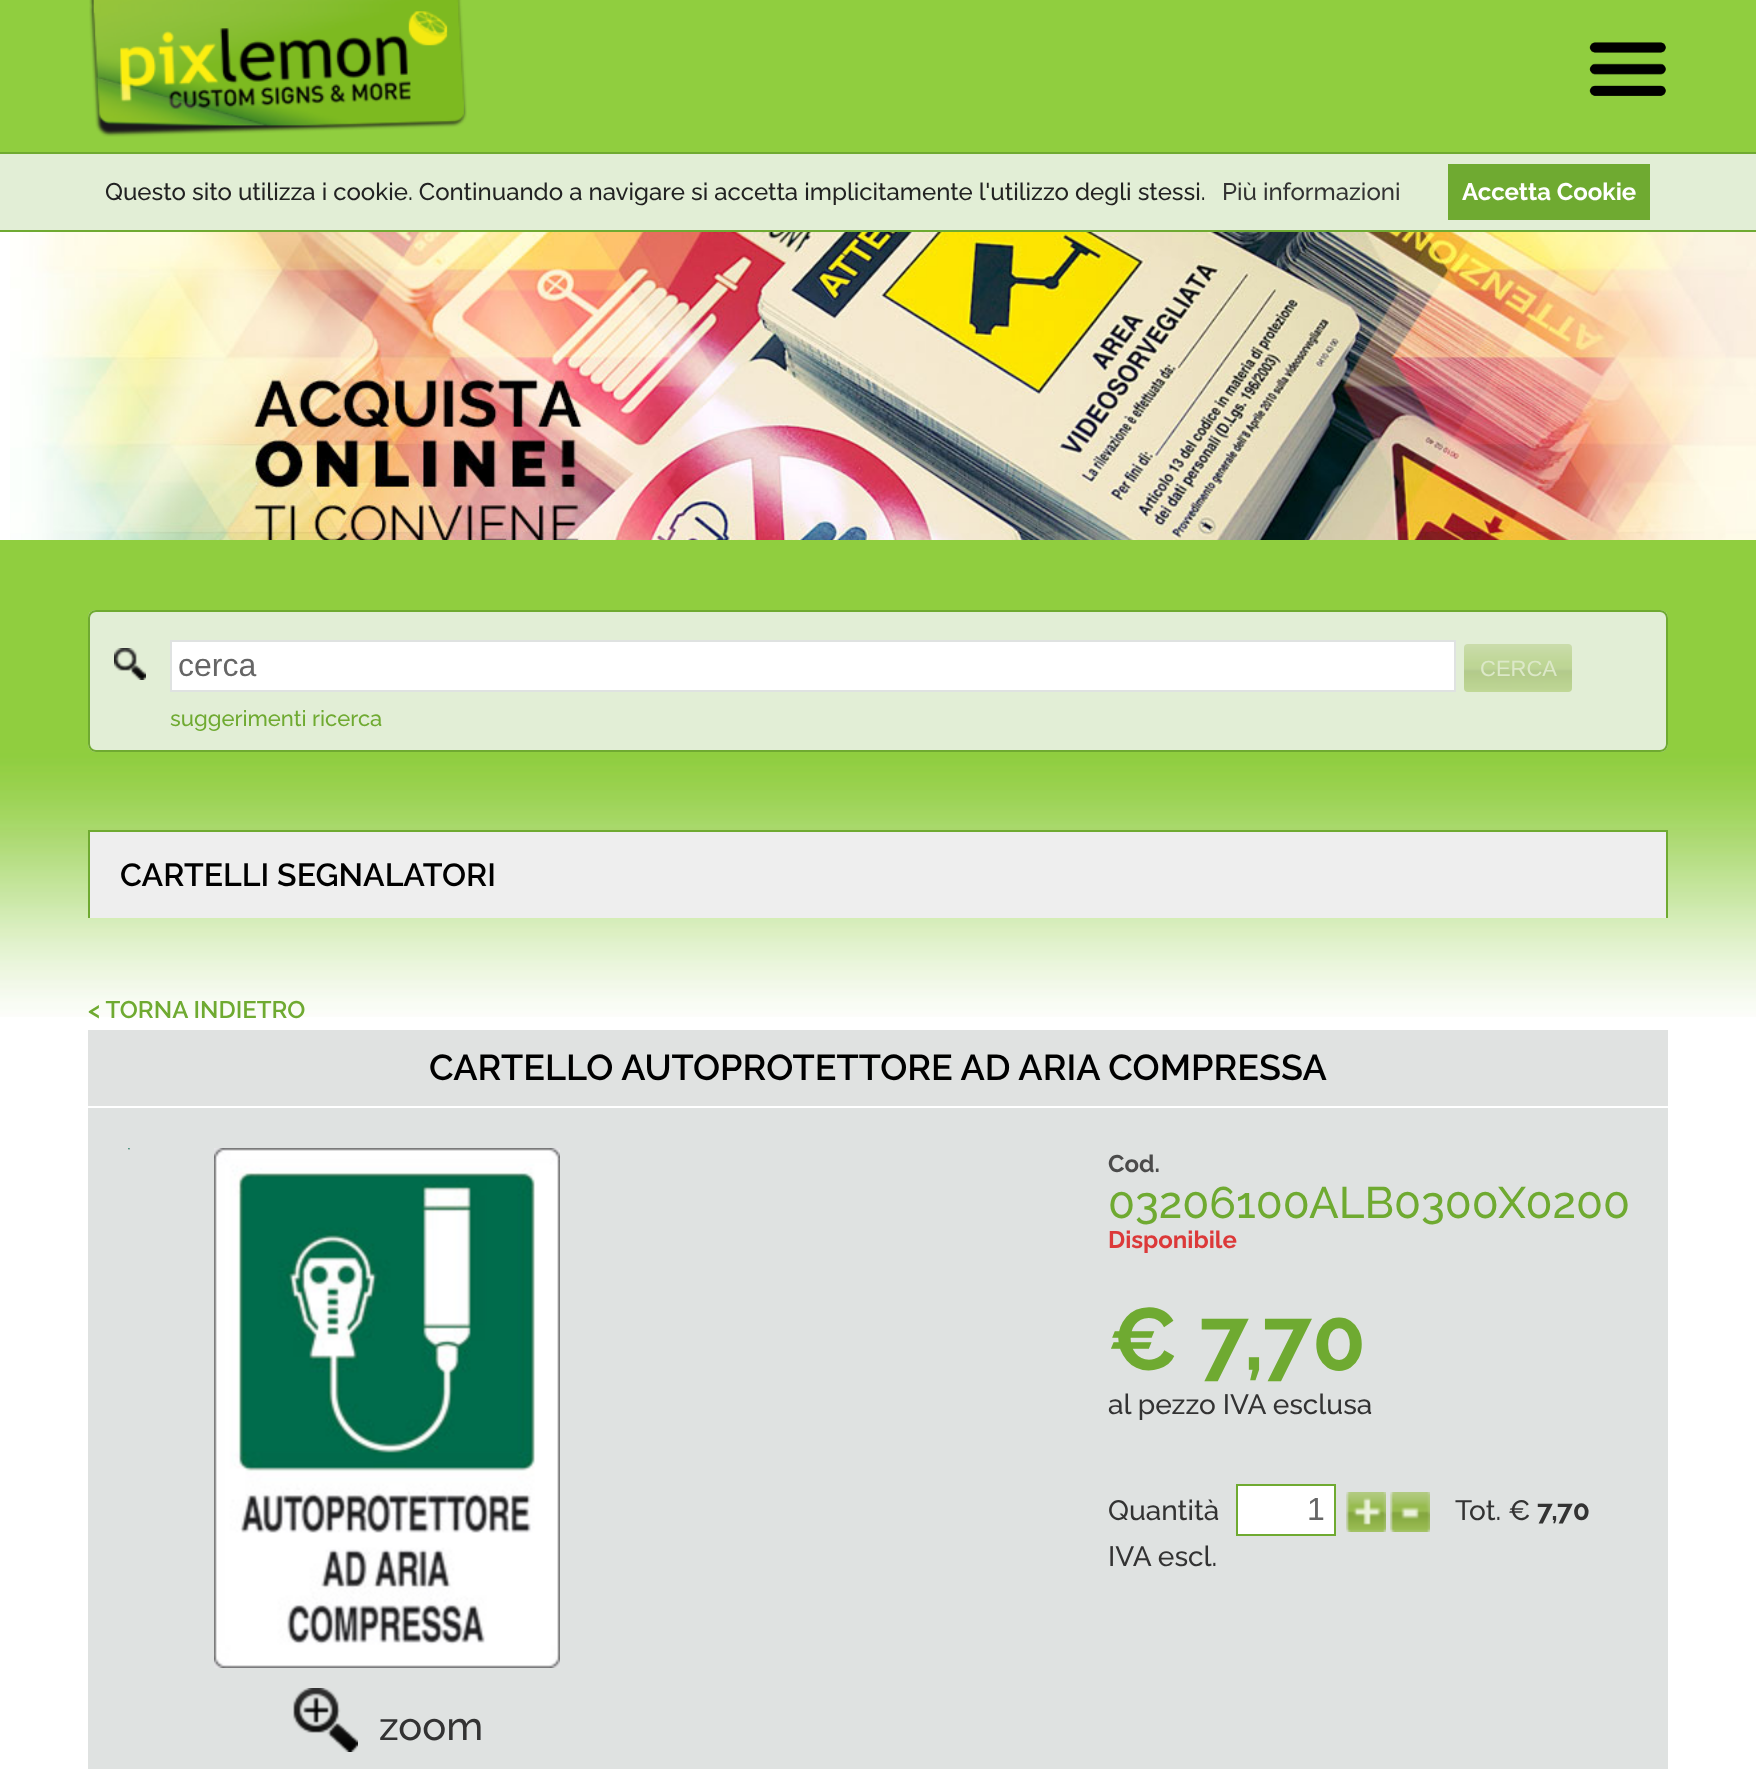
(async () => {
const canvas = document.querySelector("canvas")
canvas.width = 1756
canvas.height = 1769
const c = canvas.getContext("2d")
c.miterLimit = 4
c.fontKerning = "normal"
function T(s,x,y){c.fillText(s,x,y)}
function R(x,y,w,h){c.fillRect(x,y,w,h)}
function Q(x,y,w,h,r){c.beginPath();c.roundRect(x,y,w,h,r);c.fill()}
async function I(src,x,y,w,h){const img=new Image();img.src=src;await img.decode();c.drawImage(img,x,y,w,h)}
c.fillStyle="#fff"
R(0,0,1756,1769)
await I("1.png",0,0,1756,1017)
await I("2.png",89,0,378,137)
await I("3.png",1589,42,77,54)
R(0,232,10,308)
await I("4.png",10,232,1746,308)
c.fillStyle="#e2eed6"
R(0,154,1756,76)
c.fillStyle="#6faa31"
R(0,152,1756,2)
R(0,230,1756,2)
c.font="500 24px Raleway"
c.fillStyle="#222"
T("Questo sito utilizza i cookie. Continuando a navigare si accetta implicitamente l'utilizzo degli stessi.",105,200)
c.fillStyle="#333"
T("Più informazioni",1222,200)
c.fillStyle="#6faa31"
R(1448,164,202,56)
c.font="bold 24px Raleway"
c.fillStyle="#fff"
T("Accetta Cookie",1462,200)
c.fillStyle="#e2eed6"
Q(88,610,1580,142,8)
await I("5.png",114,648,32,32)
c.beginPath()
c.roundRect(89,611,1578,140,7)
c.strokeStyle="#6faa31"
c.lineWidth=2
c.stroke()
c.fillStyle="#fff"
c.beginPath()
c.rect(171,641,1284,50)
c.fill()
c.strokeStyle="#dfe2e1"
c.stroke()
c.font="32px Liberation Sans"
c.fillStyle="#666"
T("cerca",178,676)
await I("6.png",1464,644,108,48)
c.font="22px Liberation Sans"
c.fillStyle="#dce8c8"
T("CERCA",1480,676)
c.font="500 22px Raleway"
c.fillStyle="#6faa31"
T("suggerimenti ricerca",170,726)
c.fillStyle="#eee"
R(90,832,1576,86)
c.fillStyle="#6faa31"
R(88,830,1580,2)
R(1666,830,2,88)
R(88,830,2,88)
c.font="600 32px Raleway"
c.fillStyle="#000"
T("CARTELLI SEGNALATORI",120,886)
c.font="600 24px Raleway"
c.fillStyle="#6faa31"
T("< TORNA INDIETRO",88,1018)
c.fillStyle="#e0e2e1"
R(88,1030,1580,76)
c.font="600 36px Raleway"
c.fillStyle="#000"
T("CARTELLO AUTOPROTETTORE AD ARIA COMPRESSA",429,1080)
c.fillStyle="#dfe2e1"
R(88,1108,1580,661)
c.font="bold 24px Raleway"
c.fillStyle="#4b4b4b"
T("Cod.",1108,1172)
c.font="500 44px Raleway"
c.fillStyle="#6faa31"
T("03206100ALB0300X0200",1108,1218)
c.font="bold 24px Raleway"
c.fillStyle="#dc3939"
T("Disponibile",1108,1248)
c.font="bold 88px Raleway"
c.fillStyle="#6faa31"
T("€ 7,70",1108,1370)
c.font="500 28px Raleway"
c.fillStyle="#333"
T("al pezzo IVA esclusa",1108,1414)
T("Quantità",1108,1520)
c.fillStyle="#fff"
c.beginPath()
c.rect(1237,1485,98,50)
c.fill()
c.strokeStyle="#6faa31"
c.stroke()
c.font="32px Liberation Sans"
c.fillStyle="#666"
T("1",1307,1520)
await I("7.png",1346,1492,40,40)
await I("8.png",1390,1492,40,40)
c.font="500 28px Raleway"
c.fillStyle="#333"
T("Tot. €",1455,1520)
c.font="bold 28px Raleway"
T("7,70",1537,1520)
c.font="500 28px Raleway"
T("IVA escl.",1108,1566)
await I("9.png",214,1148,346,520)
await I("10.png",128,1148,2,2)
await I("11.png",293,1688,65,64)
c.font="500 40px Raleway"
T("zoom",379,1740)
})()
